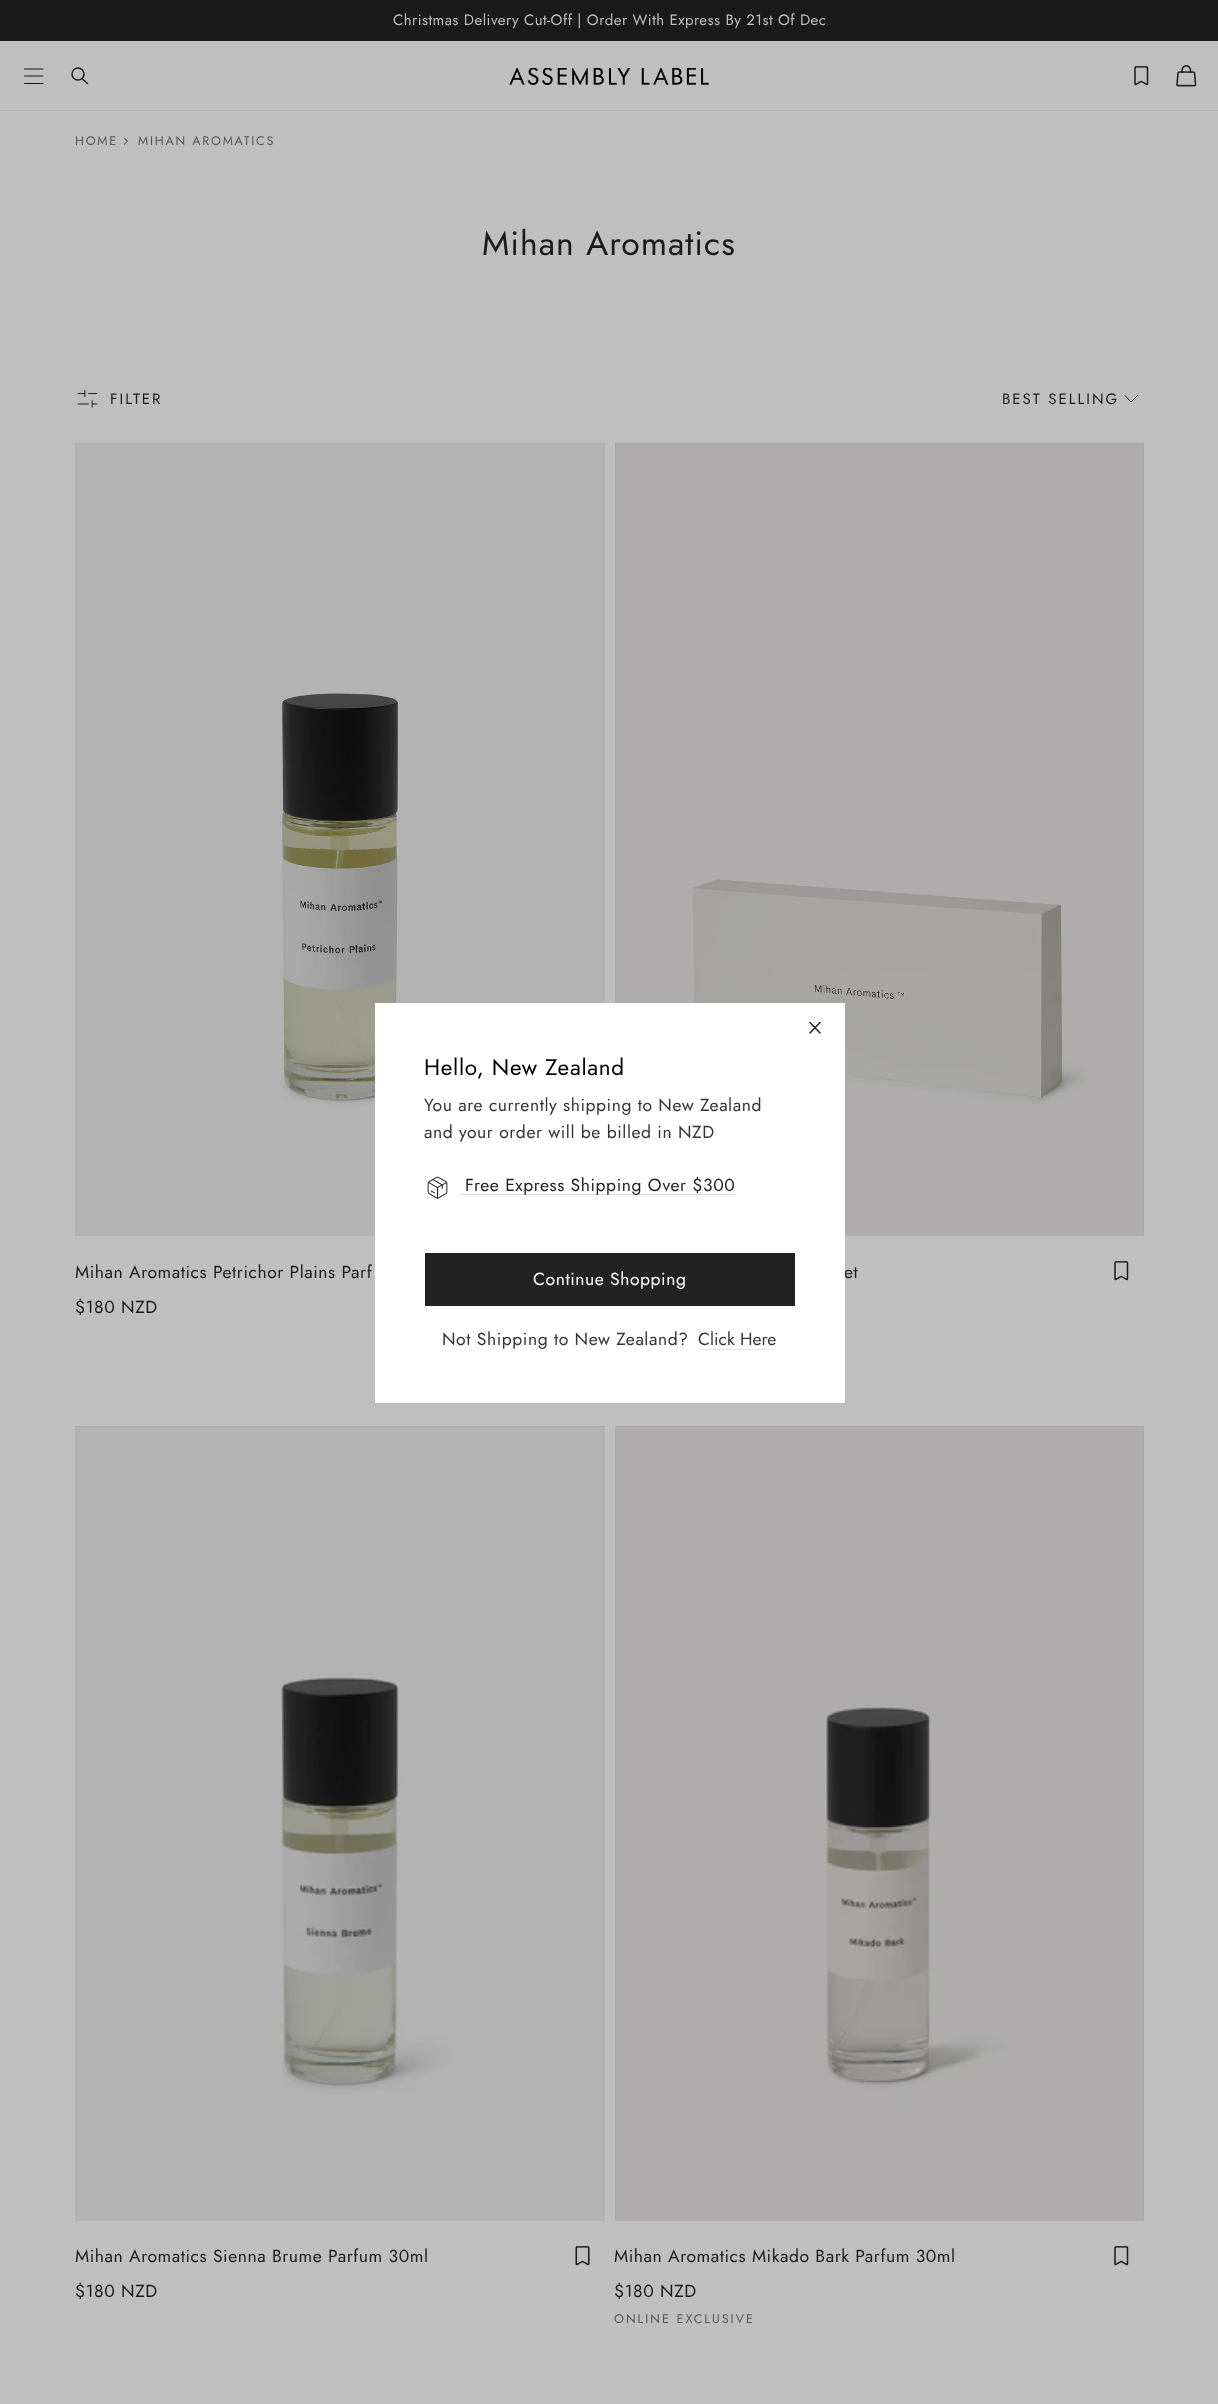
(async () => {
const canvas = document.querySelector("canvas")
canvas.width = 1218
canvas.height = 2404
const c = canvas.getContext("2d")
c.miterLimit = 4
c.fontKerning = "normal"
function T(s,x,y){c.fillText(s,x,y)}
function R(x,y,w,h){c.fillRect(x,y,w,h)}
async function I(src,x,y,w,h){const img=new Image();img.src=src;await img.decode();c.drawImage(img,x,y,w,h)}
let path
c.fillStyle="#bfbfbf"
R(0,0,1218,2404)
c.fillStyle="#1a1a1a"
R(0,0,1218,41)
c.letterSpacing="0.45px"
c.font="15px Jost"
c.fillStyle="#bfbfbf"
T("Christmas Delivery Cut-Off | Order With Express By 21st Of Dec",393,25)
c.fillStyle="#b6b6b6"
R(0,110,1218,1)
path = new Path2D("M24.5 76h18.5m-18.5 7.5h18.5m-18.5-14.5h18.5")
c.strokeStyle="#1a1a1a"
c.lineCap="round"
c.lineJoin="round"
c.stroke(path)
c.beginPath()
c.arc(78,74,6,0,7)
c.lineWidth=1.5
c.stroke()
path = new Path2D("M82.5 79l5 4.5")
c.stroke(path)
await I("1.png",509,68,200,17)
await I("2.png",1134,66,15,20)
await I("3.png",1176,65,21,22)
c.letterSpacing="1.75px"
c.font="12.5px Jost"
c.fillStyle="#565755"
T("HOME",75,145)
path = new Path2D("M124.5 137.5l3.5 3.5l-.5 1l-3.5-3.5z")
c.fill(path)
path = new Path2D("M127.5 140.5l.5 .5l-3.5 4l-.5-1z")
c.fill(path)
T("MIHAN AROMATICS",138,145)
c.letterSpacing="1px"
c.font="33.75px Jost"
c.fillStyle="#1a1a1a"
T("Mihan Aromatics",482,255)
await I("4.png",77,390,21,18)
c.letterSpacing="2px"
c.font="15px Jost"
T("FILTER",110,404)
T("BEST SELLING",1002,404)
path = new Path2D("M1125 395.5l6 6.5l6.5-6.5")
c.lineWidth=1
c.stroke(path)
await I("5.png",75,442,530,794)
c.letterSpacing="0.55px"
c.font="17.5px Jost"
T("Mihan Aromatics Petrichor Plains Parf",75,1278)
T("$180 NZD",75,1313)
c.fillStyle="#a6a4a4"
R(1143,443,1,793)
await I("6.png",615,442,529,794)
c.fillStyle="#1a1a1a"
T("et",844,1278)
await I("2.png",1114,1261,15,20)
c.fillStyle="#a6a4a4"
R(75,1426,530,1)
await I("7.png",75,1426,530,795)
c.fillStyle="#1a1a1a"
T("Mihan Aromatics Sienna Brume Parfum 30ml",75,2262)
await I("8.png",575,2246,15,20)
T("$180 NZD",75,2297)
c.fillStyle="#a6a4a4"
R(615,1426,529,795)
await I("9.png",615,1426,529,795)
c.fillStyle="#1a1a1a"
T("Mihan Aromatics Mikado Bark Parfum 30ml",614,2262)
await I("2.png",1114,2246,15,20)
T("$180 NZD",614,2297)
c.letterSpacing="2px"
c.font="12.5px Jost"
c.fillStyle="#565755"
T("ONLINE EXCLUSIVE",614,2323)
c.fillStyle="#fff"
R(375,1003,470,400)
path = new Path2D("M820 1022.5l-10 10.5m0-10.5l10 10.5")
c.strokeStyle="#222"
c.lineWidth=1.5
c.stroke(path)
c.letterSpacing="0.7px"
c.font="22.5px Jost"
c.fillStyle="#000"
T("Hello, New Zealand",424,1075)
c.letterSpacing="0.55px"
c.font="17.5px Jost"
c.fillStyle="#353535"
T("You are currently shipping to New Zealand",424,1111)
T("and your order will be billed in NZD",424,1138)
await I("10.png",427,1176,21,23)
c.fillStyle="#dddada"
R(460,1194,275,1)
c.fillStyle="#222"
T("Free Express Shipping Over $300",465,1191)
R(425,1253,370,53)
c.fillStyle="#fff"
T("Continue Shopping",533,1285)
c.fillStyle="#353535"
T("Not Shipping to New Zealand?",442,1345)
c.fillStyle="#e1e1e0"
R(699,1349,77,1)
c.letterSpacing="0px"
c.fillStyle="#353535"
T("Click Here",698,1345)
})()
